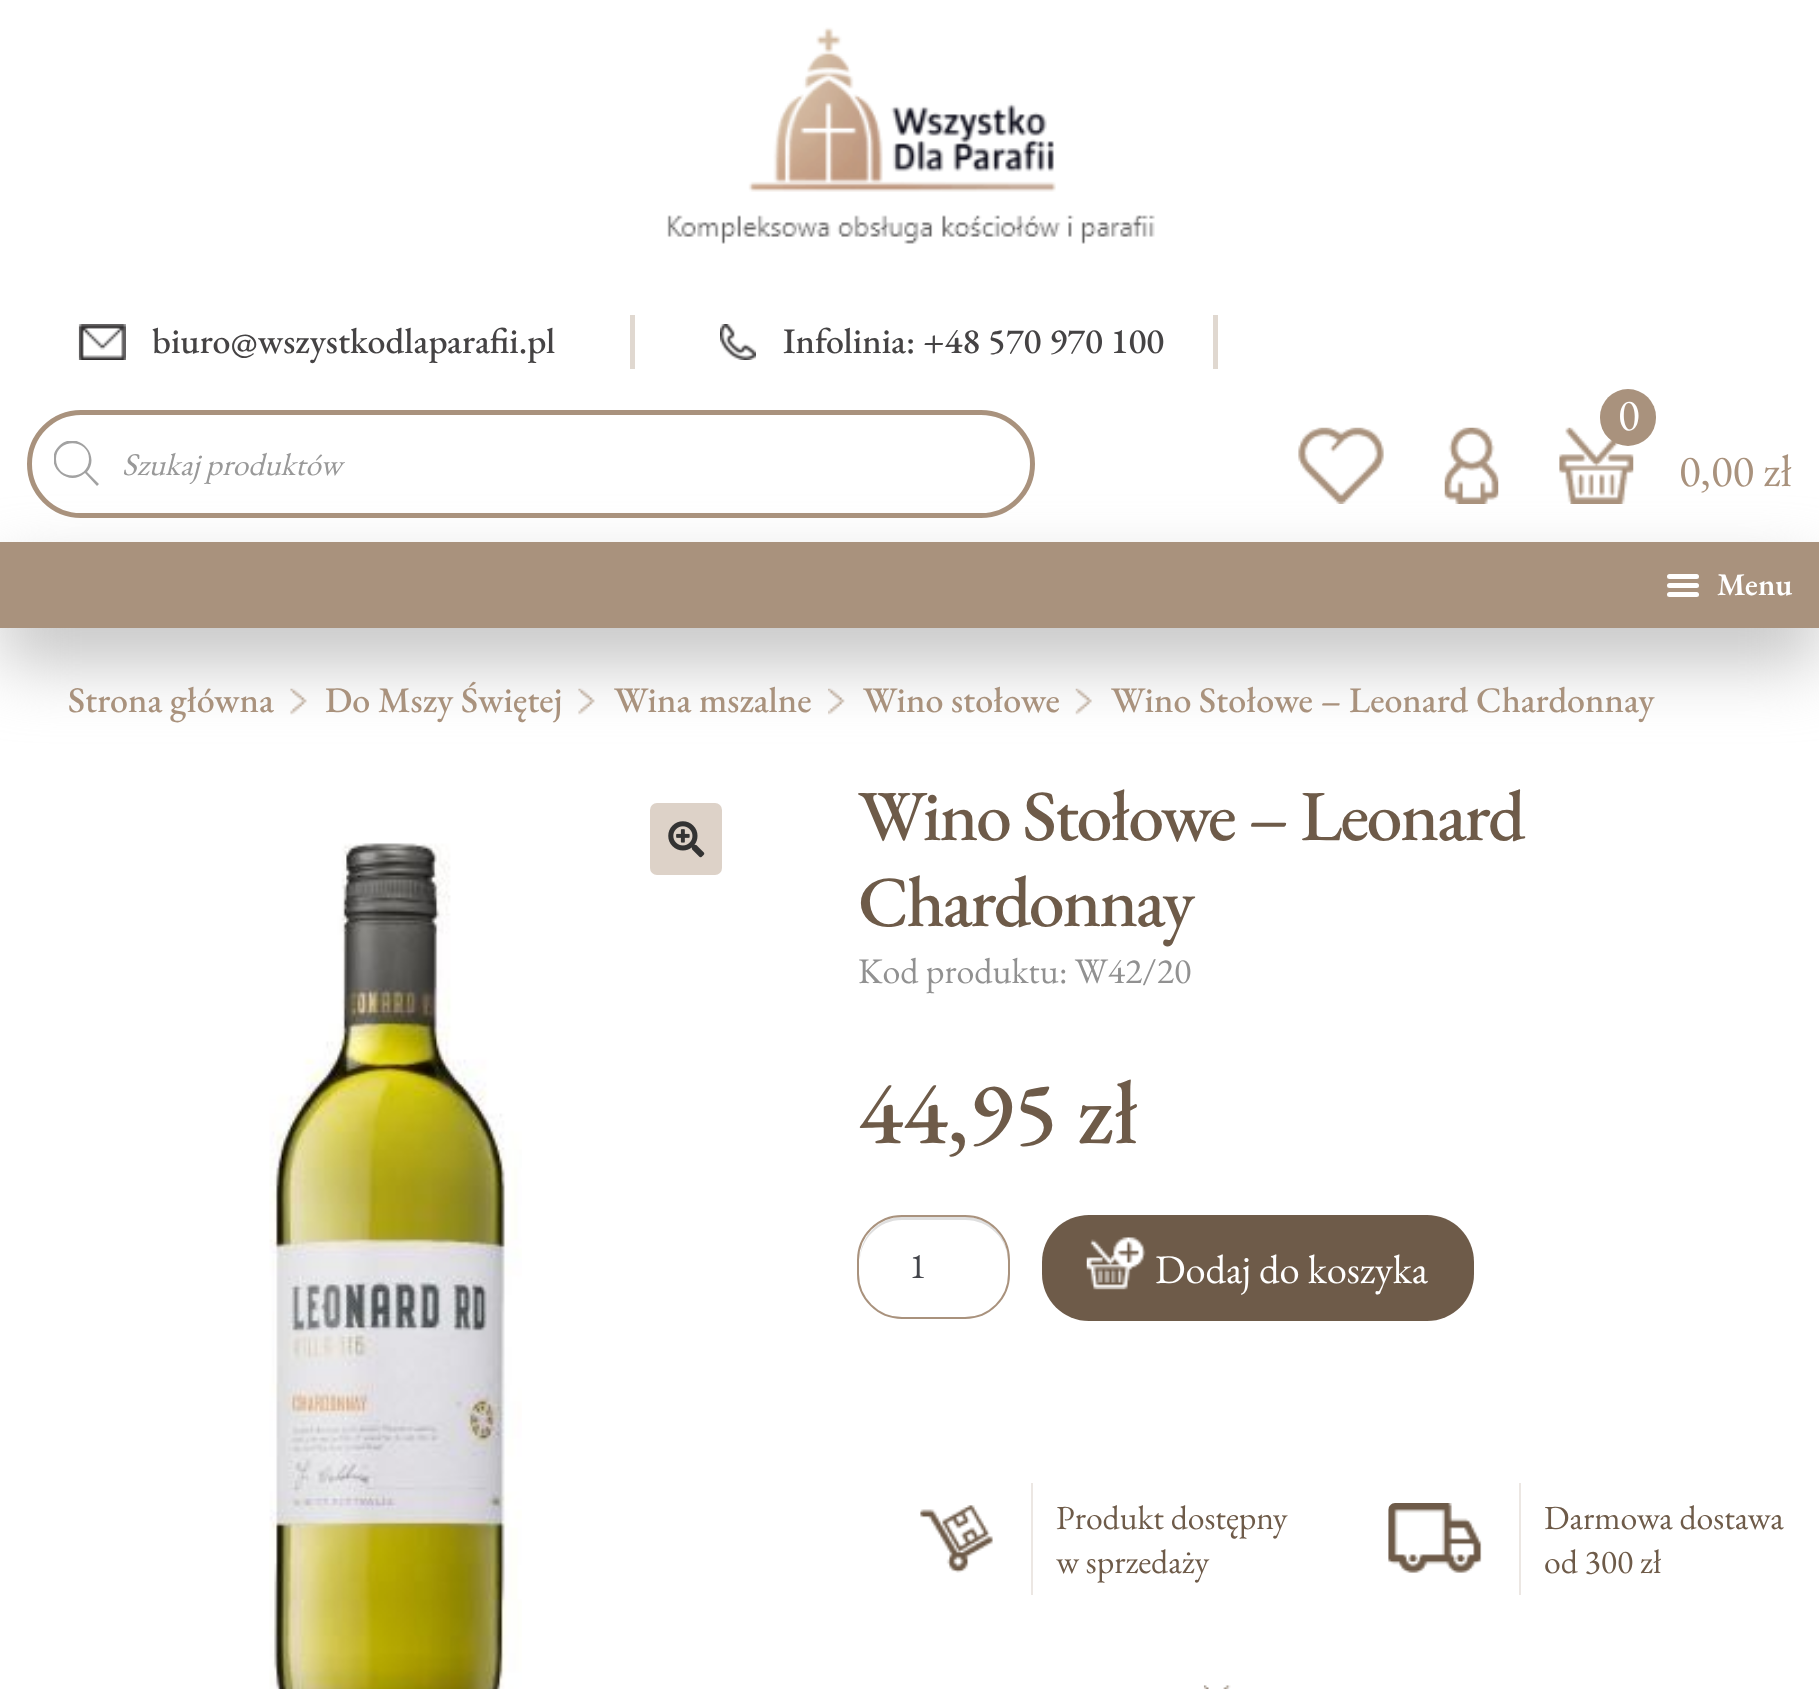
(async () => {
const canvas = document.querySelector("canvas")
canvas.width = 1819
canvas.height = 1689
const c = canvas.getContext("2d")
c.miterLimit = 4
c.fontKerning = "normal"
function T(s,x,y){c.fillText(s,x,y)}
function R(x,y,w,h){c.fillRect(x,y,w,h)}
function Q(x,y,w,h,r){c.beginPath();c.roundRect(x,y,w,h,r);c.fill()}
async function I(src,x,y,w,h){const img=new Image();img.src=src;await img.decode();c.drawImage(img,x,y,w,h)}
let path
c.fillStyle="#fff"
R(0,0,1819,1689)
await I("1.png",667,27,488,217)
await I("2.png",78,324,48,36)
c.font="500 36px EB Garamond"
c.fillStyle="#454344"
T("biuro@wszystkodlaparafii.pl",152,353)
c.fillStyle="#e0d8d0"
R(630,315,5,54)
await I("3.png",720,324,36,36)
c.fillStyle="#454344"
T("Infolinia: +48 570 970 100",783,353)
c.fillStyle="#e0d8d0"
R(1213,315,5,54)
c.fillStyle="#c3c3c3"
c.filter="blur(34px)"
c.beginPath()
c.rect(0,576,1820,86)
c.fill()
c.filter="none"
c.beginPath()
c.roundRect(29.5,412.5,1003,103,51.5)
c.strokeStyle="#a9927d"
c.lineWidth=5
c.stroke()
c.save()
c.beginPath()
c.rect(54,441,45,45)
c.clip()
c.fillStyle="#a2a2a2"
path = new Path2D("M99 484l-12-12c15-18-11-43-28-26c-17 17 8 43 26 27l12 13zm-43-25c0-21 33-21 33 0c0 22-33 22-33 0z")
c.fill(path)
c.restore()
c.font="italic 31.5px EB Garamond"
c.fillStyle="#999"
T("Szukaj produktów",122,475)
await I("4.png",1298,427,86,77)
await I("5.png",1444,427,55,77)
await I("6.png",1559,427,75,77)
c.fillStyle="#a9927d"
Q(1600,389,56,57,28)
c.font="45px EB Garamond"
c.fillStyle="#fff"
T("0",1618,430)
c.fillStyle="#a9927d"
T("0,00 zł",1679,486)
R(0,542,1819,86)
c.fillStyle="#fff"
Q(1667,574,32,5,2.5)
Q(1667,583,32,5,2.5)
c.font="600 31.5px EB Garamond"
T("Menu",1717,595)
Q(1667,592,32,5,2.5)
c.font="500 36px EB Garamond"
c.fillStyle="#a9927d"
T("Strona główna",68,712)
await I("7.png",290,688,17,27)
T("Do Mszy Świętej",325,712)
await I("7.png",578,688,17,27)
T("Wina mszalne",614,712)
await I("8.png",828,688,17,27)
T("Wino stołowe",863,712)
await I("9.png",1075,688,17,27)
T("Wino Stołowe – Leonard Chardonnay",1111,712)
await I("10.png",269,843,253,846)
c.fillStyle="#ddd2c8"
Q(650,803,72,72,7)
await I("11.png",668,821,37,37)
c.letterSpacing="-2.25px"
c.font="500 72px EB Garamond"
c.fillStyle="#6e5b49"
T("Wino Stołowe – Leonard",858,840)
T("Chardonnay",858,926)
c.letterSpacing="0px"
c.font="36px EB Garamond"
c.fillStyle="#919191"
T("Kod produktu: W42/20",858,983)
c.font="500 90px EB Garamond"
c.fillStyle="#6e5b49"
T("44,95 zł",858,1143)
c.fillStyle="#dfdfdf"
path = new Path2D("M902 1220h63c24 0 43 19 43 42v-2c0-24-19-43-43-43h-62c-24 0-43 19-43 43v2c0-23 19-42 42-42z")
c.fill(path)
c.beginPath()
c.roundRect(858,1216,151,102,44)
c.lineWidth=2
c.stroke()
c.font="36px EB Garamond"
c.fillStyle="#43454b"
T("1",909,1278)
c.fillStyle="#6e5b49"
Q(1042,1215,432,106,47)
await I("12.png",1086,1237,60,53)
c.font="40.5px EB Garamond"
c.fillStyle="#fff"
T("Dodaj do koszyka",1155,1283)
await I("13.png",920,1505,73,68)
c.fillStyle="#ece7e3"
R(1031,1483,2,112)
c.font="33.75px EB Garamond"
c.fillStyle="#6e5b49"
T("Produkt dostępny",1056,1529)
T("w sprzedaży",1056,1573)
await I("14.png",1388,1503,94,70)
c.fillStyle="#ece7e3"
R(1519,1483,2,112)
c.fillStyle="#6e5b49"
T("Darmowa dostawa",1544,1529)
T("od 300 zł",1544,1573)
await I("15.png",1203,1685,28,4)
})()
